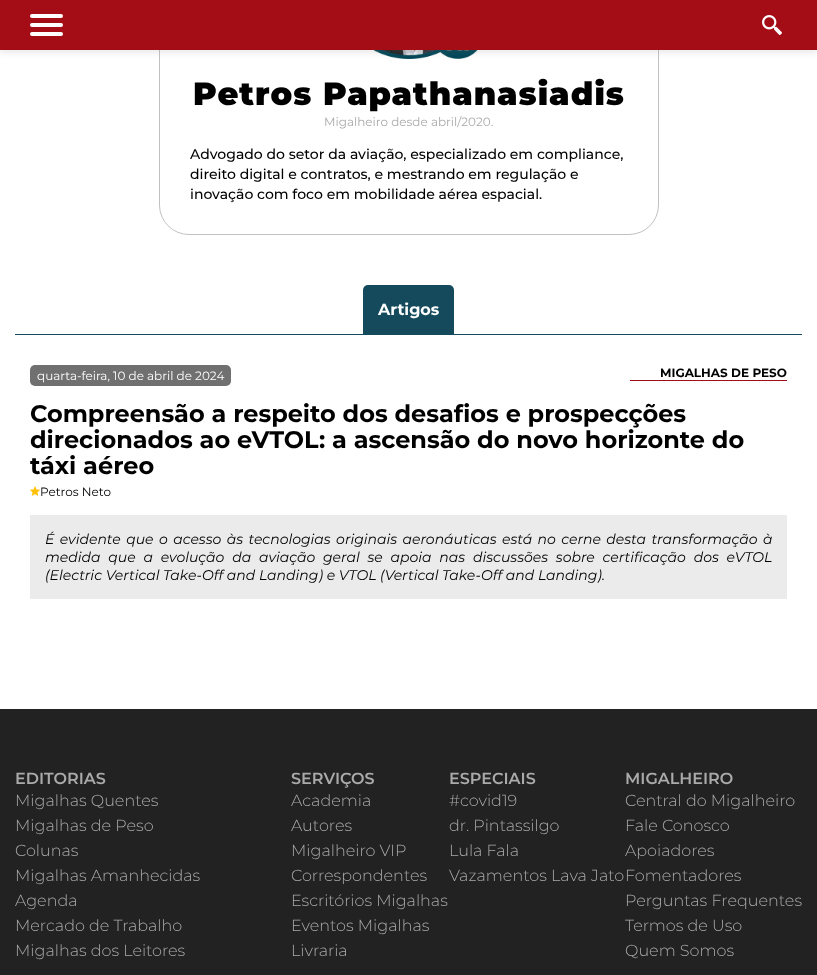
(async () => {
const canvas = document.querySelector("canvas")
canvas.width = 817
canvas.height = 975
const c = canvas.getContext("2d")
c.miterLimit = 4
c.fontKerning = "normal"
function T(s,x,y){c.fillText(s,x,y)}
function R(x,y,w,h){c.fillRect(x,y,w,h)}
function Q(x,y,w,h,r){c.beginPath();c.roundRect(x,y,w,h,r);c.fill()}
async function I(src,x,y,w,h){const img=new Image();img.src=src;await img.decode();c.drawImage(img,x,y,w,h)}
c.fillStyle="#fff"
R(0,0,817,975)
c.beginPath()
c.roundRect(159.5,-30.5,499,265,29.5)
c.strokeStyle="#c1c1c1"
c.stroke()
await I("2.png",373,50,105,9)
c.fillStyle="#7a7a7a29"
c.filter="blur(3px)"
c.beginPath()
c.rect(0,3,817,50)
c.fill()
c.filter="none"
c.fillStyle="#a40c16"
R(0,0,817,50)
c.fillStyle="#fff"
Q(30,14,33,4,2)
Q(30,23,33,4,2)
Q(30,32,33,4,2)
await I("1.png",762,15,20,20)
c.letterSpacing="1px"
c.font="900 32px Montserrat"
c.fillStyle="#000"
T("Petros Papathanasiadis",193,105)
c.letterSpacing="0px"
c.font="12px Montserrat"
c.fillStyle="#aaa"
T("Migalheiro desde abril/2020.",324,126)
c.font="500 14px Montserrat"
c.fillStyle="#000"
T("Advogado do setor da aviação, especializado em compliance,",190,159)
T("direito digital e contratos, e mestrando em regulação e",190,179)
T("inovação com foco em mobilidade aérea espacial.",190,199)
c.fillStyle="#144a5b"
R(15,334,787,1)
c.beginPath()
c.roundRect(363,285,91,49,[5,5,0,0])
c.fill()
c.font="bold 16px Montserrat"
c.fillStyle="#fff"
T("Artigos",378,315)
c.fillStyle="#a40c16"
R(630,380,157,1)
c.font="bold 12px Montserrat"
c.fillStyle="#000"
T("MIGALHAS DE PESO",660,377)
c.fillStyle="#707070"
Q(30,365,201,21,5)
c.font="12px Montserrat"
c.fillStyle="#fff"
T("quarta-feira, 10 de abril de 2024",37,380)
c.font="bold 24px Montserrat"
c.fillStyle="#000"
T("Compreensão a respeito dos desafios e prospecções",30,422)
T("direcionados ao eVTOL: a ascensão do novo horizonte do",30,448)
T("táxi aéreo",30,474)
await I("3.png",30,486,10,10)
c.font="12px Montserrat"
T("Petros Neto",40,496)
c.fillStyle="#ebebeb"
R(30,515,757,84)
c.wordSpacing="1.75px"
c.font="italic 14px Montserrat"
c.fillStyle="#000"
T("É evidente que o acesso às tecnologias originais aeronáuticas está no cerne desta transformação à",45,544)
c.wordSpacing="4.1px"
T("medida que a evolução da aviação geral se apoia nas discussões sobre certificação dos eVTOL",45,562)
c.wordSpacing="0px"
T("(Electric Vertical Take-Off and Landing) e VTOL (Vertical Take-Off and Landing).",45,580)
c.fillStyle="#222"
R(0,709,817,266)
c.font="600 16px Montserrat"
c.fillStyle="#aaa"
T("EDITORIAS",15,784)
c.font="300 16px Montserrat"
T("Migalhas Quentes",15,806)
T("Migalhas de Peso",15,831)
T("Colunas",15,856)
T("Migalhas Amanhecidas",15,881)
T("Agenda",15,906)
T("Mercado de Trabalho",15,931)
T("Migalhas dos Leitores",15,956)
c.font="600 16px Montserrat"
T("SERVIÇOS",291,784)
c.font="300 16px Montserrat"
T("Academia",291,806)
T("Autores",291,831)
T("Migalheiro VIP",291,856)
T("Correspondentes",291,881)
T("Escritórios Migalhas",291,906)
T("Eventos Migalhas",291,931)
T("Livraria",291,956)
c.font="600 16px Montserrat"
T("ESPECIAIS",449,784)
c.font="300 16px Montserrat"
T("#covid19",449,806)
T("dr. Pintassilgo",449,831)
T("Lula Fala",449,856)
T("Vazamentos Lava Jato",449,881)
c.font="600 16px Montserrat"
T("MIGALHEIRO",625,784)
c.font="300 16px Montserrat"
T("Central do Migalheiro",625,806)
T("Fale Conosco",625,831)
T("Apoiadores",625,856)
T("Fomentadores",625,881)
T("Perguntas Frequentes",625,906)
T("Termos de Uso",625,931)
T("Quem Somos",625,956)
})()
